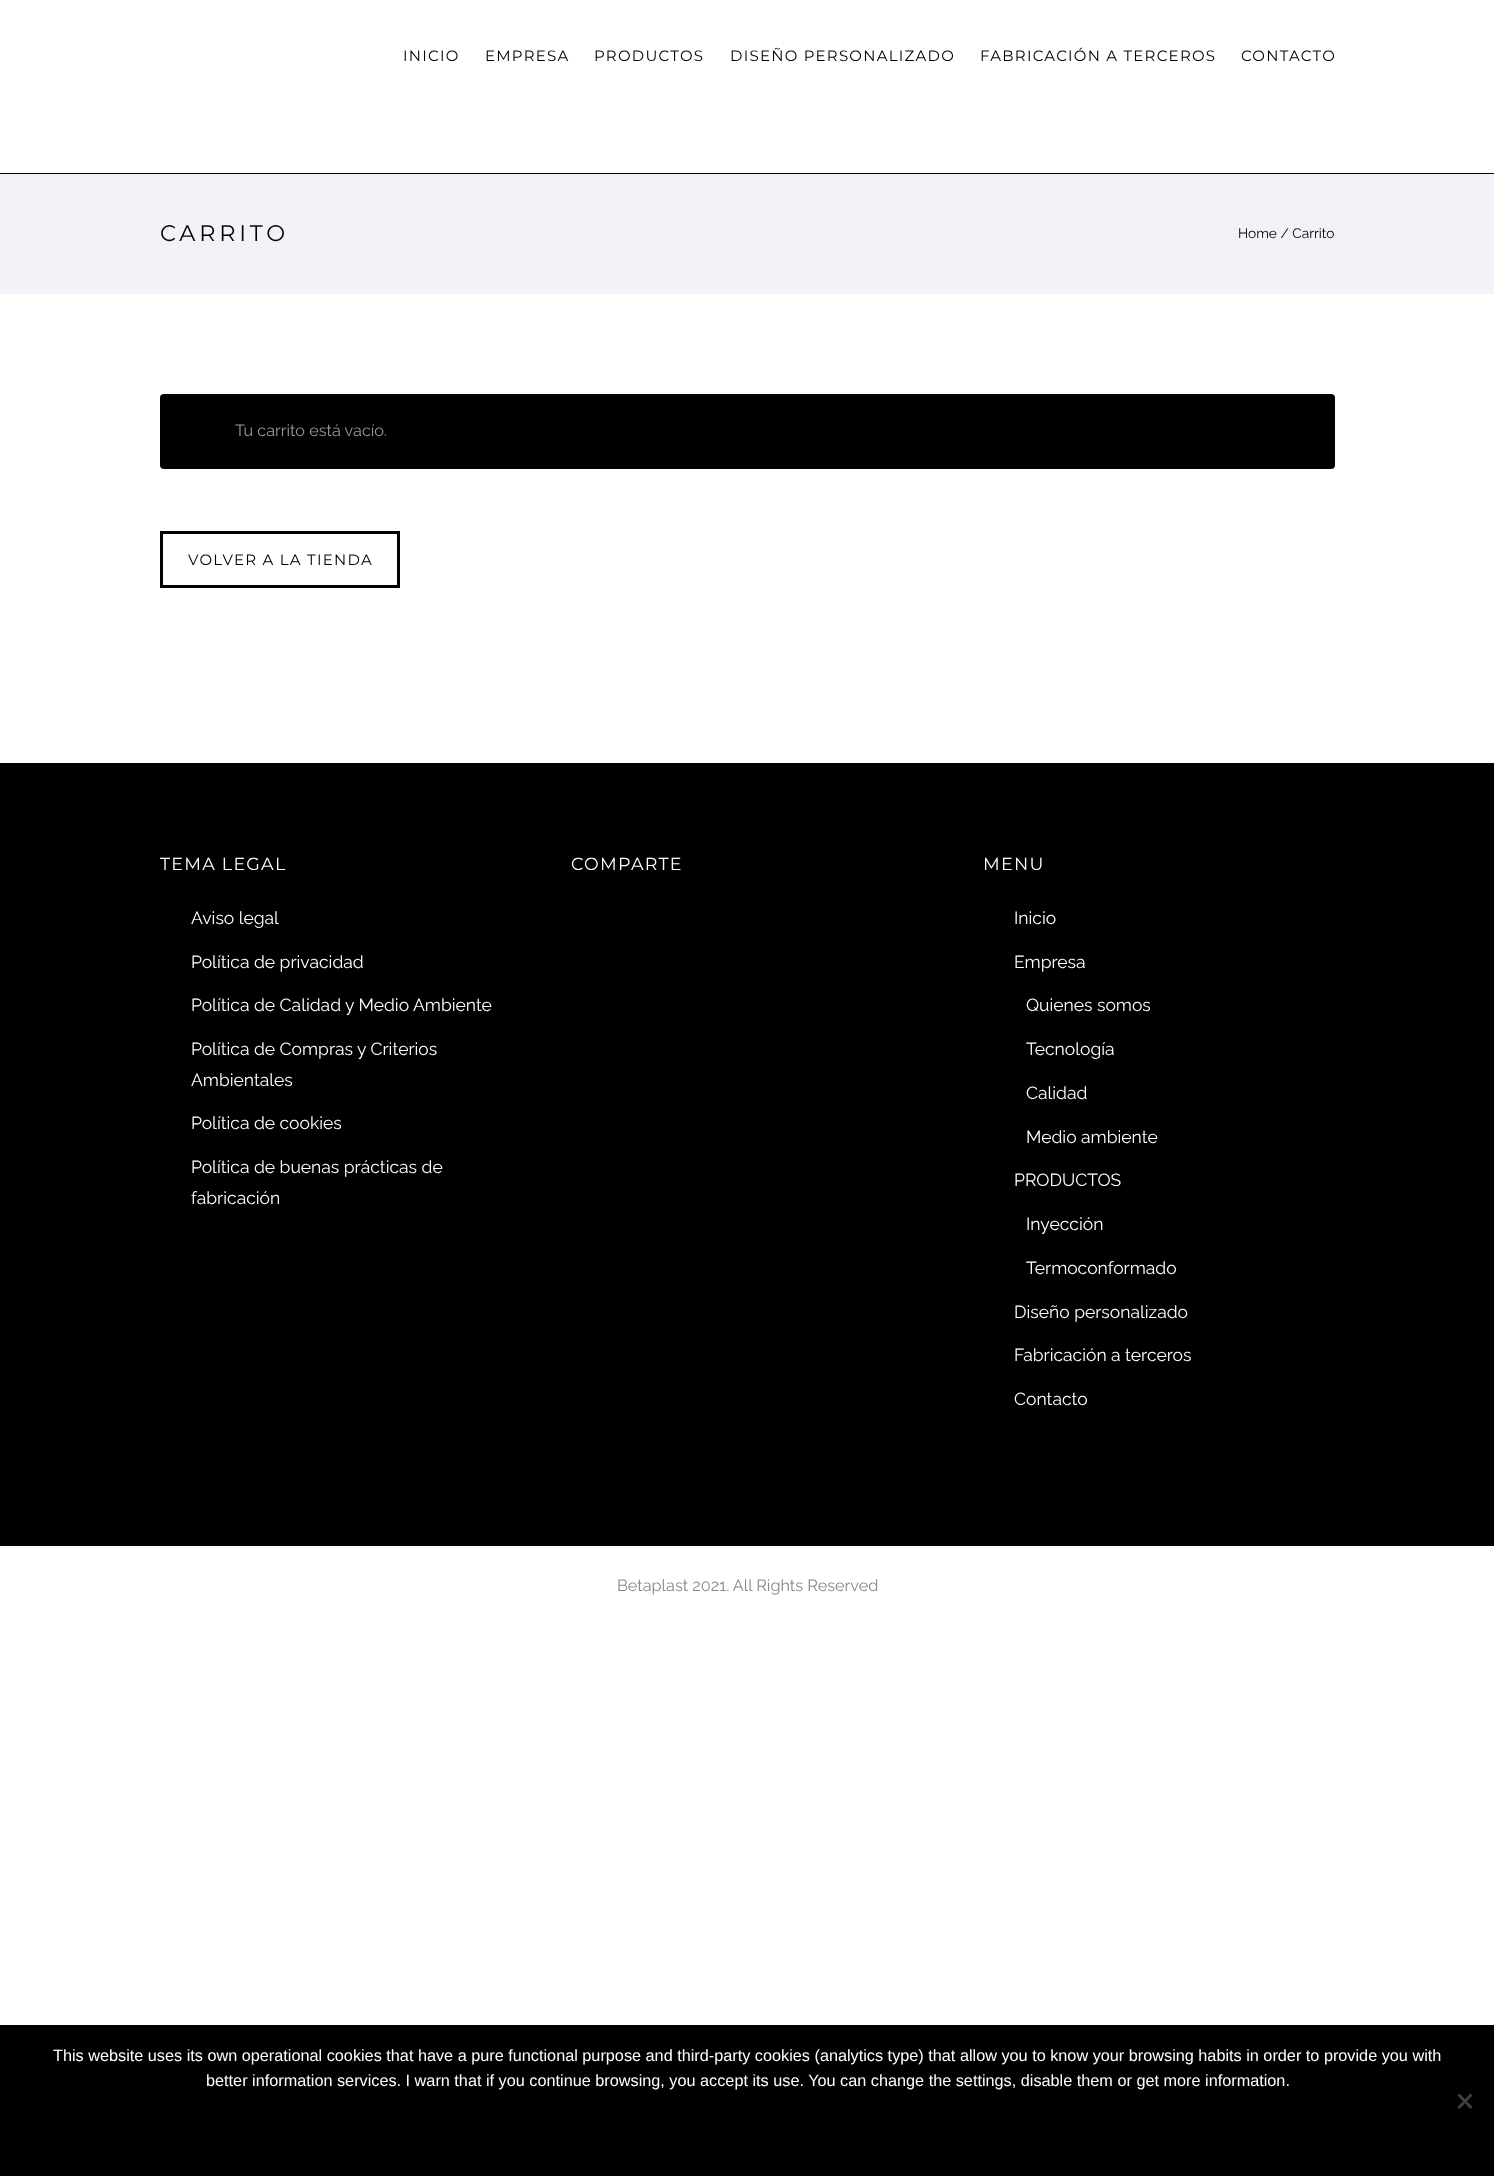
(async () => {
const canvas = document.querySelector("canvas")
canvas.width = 1494
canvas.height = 2176
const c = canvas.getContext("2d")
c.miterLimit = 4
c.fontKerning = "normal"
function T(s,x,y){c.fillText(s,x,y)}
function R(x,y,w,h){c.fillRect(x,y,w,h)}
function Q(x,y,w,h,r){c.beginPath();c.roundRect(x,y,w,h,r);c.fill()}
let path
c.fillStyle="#fff"
R(0,0,1494,2176)
c.letterSpacing="1.25px"
c.font="15px Montserrat"
c.fillStyle="#000"
T("INICIO",403,61)
T("EMPRESA",485,61)
T("PRODUCTOS",594,61)
T("DISEÑO PERSONALIZADO",730,61)
T("FABRICACIÓN A TERCEROS",980,61)
T("CONTACTO",1241,61)
R(0,173,1494,1)
c.fillStyle="#f2f3f8"
R(0,174,1494,120)
c.letterSpacing="3.75px"
c.font="22.5px Montserrat"
c.fillStyle="#000"
T("CARRITO",160,241)
c.letterSpacing="0px"
c.font="13.75px Raleway"
T("Home / Carrito",1238,238)
Q(160,394,1175,75,4)
c.font="16.25px Raleway"
c.fillStyle="#999"
T("Tu carrito está vacío.",235,436)
c.strokeStyle="#000"
c.lineWidth=3
c.strokeRect(161.5,532.5,237,54)
c.letterSpacing="1.25px"
c.font="15px Montserrat"
c.fillStyle="#000"
T("VOLVER A LA TIENDA",188,565)
R(0,763,1494,783)
c.font="17.5px Montserrat"
c.fillStyle="#fff"
T("TEMA LEGAL",160,870)
c.letterSpacing="0px"
c.font="17.5px Raleway"
T("Aviso legal",191,924)
T("Política de privacidad",191,968)
T("Política de Calidad y Medio Ambiente",191,1011)
T("Política de Compras y Criterios",191,1055)
T("Ambientales",191,1086)
T("Política de cookies",191,1129)
T("Política de buenas prácticas de",191,1173)
T("fabricación",191,1204)
c.letterSpacing="1.25px"
c.font="17.5px Montserrat"
T("COMPARTE",571,870)
T("MENU",983,870)
c.letterSpacing="0px"
c.font="17.5px Raleway"
T("Inicio",1014,924)
T("Empresa",1014,968)
T("Quienes somos",1026,1011)
T("Tecnología",1026,1055)
T("Calidad",1026,1099)
T("Medio ambiente",1026,1143)
T("PRODUCTOS",1014,1186)
T("Inyección",1026,1230)
T("Termoconformado",1026,1274)
T("Diseño personalizado",1014,1318)
T("Fabricación a terceros",1014,1361)
T("Contacto",1014,1405)
c.font="16.25px Raleway"
c.fillStyle="#888"
T("Betaplast 2021. All Rights Reserved",617,1591)
c.fillStyle="#000"
R(0,2025,1494,151)
c.font="16.25px Liberation Sans"
c.fillStyle="#fff"
T("This website uses its own operational cookies that have a pure functional purpose and third-party cookies (analytics type) that allow you to know your browsing habits in order to provide you with",53,2061)
T("better information services. I warn that if you continue browsing, you accept its use. You can change the settings, disable them or get more information.",206,2086)
c.fillStyle="#404040"
path = new Path2D("M1470.5 2093.5l2 2l-13 13.5l-2-2z")
c.fill(path)
path = new Path2D("M1457.5 2095.5l2-2l13 13.5l-2 2z")
c.fill(path)
})()
